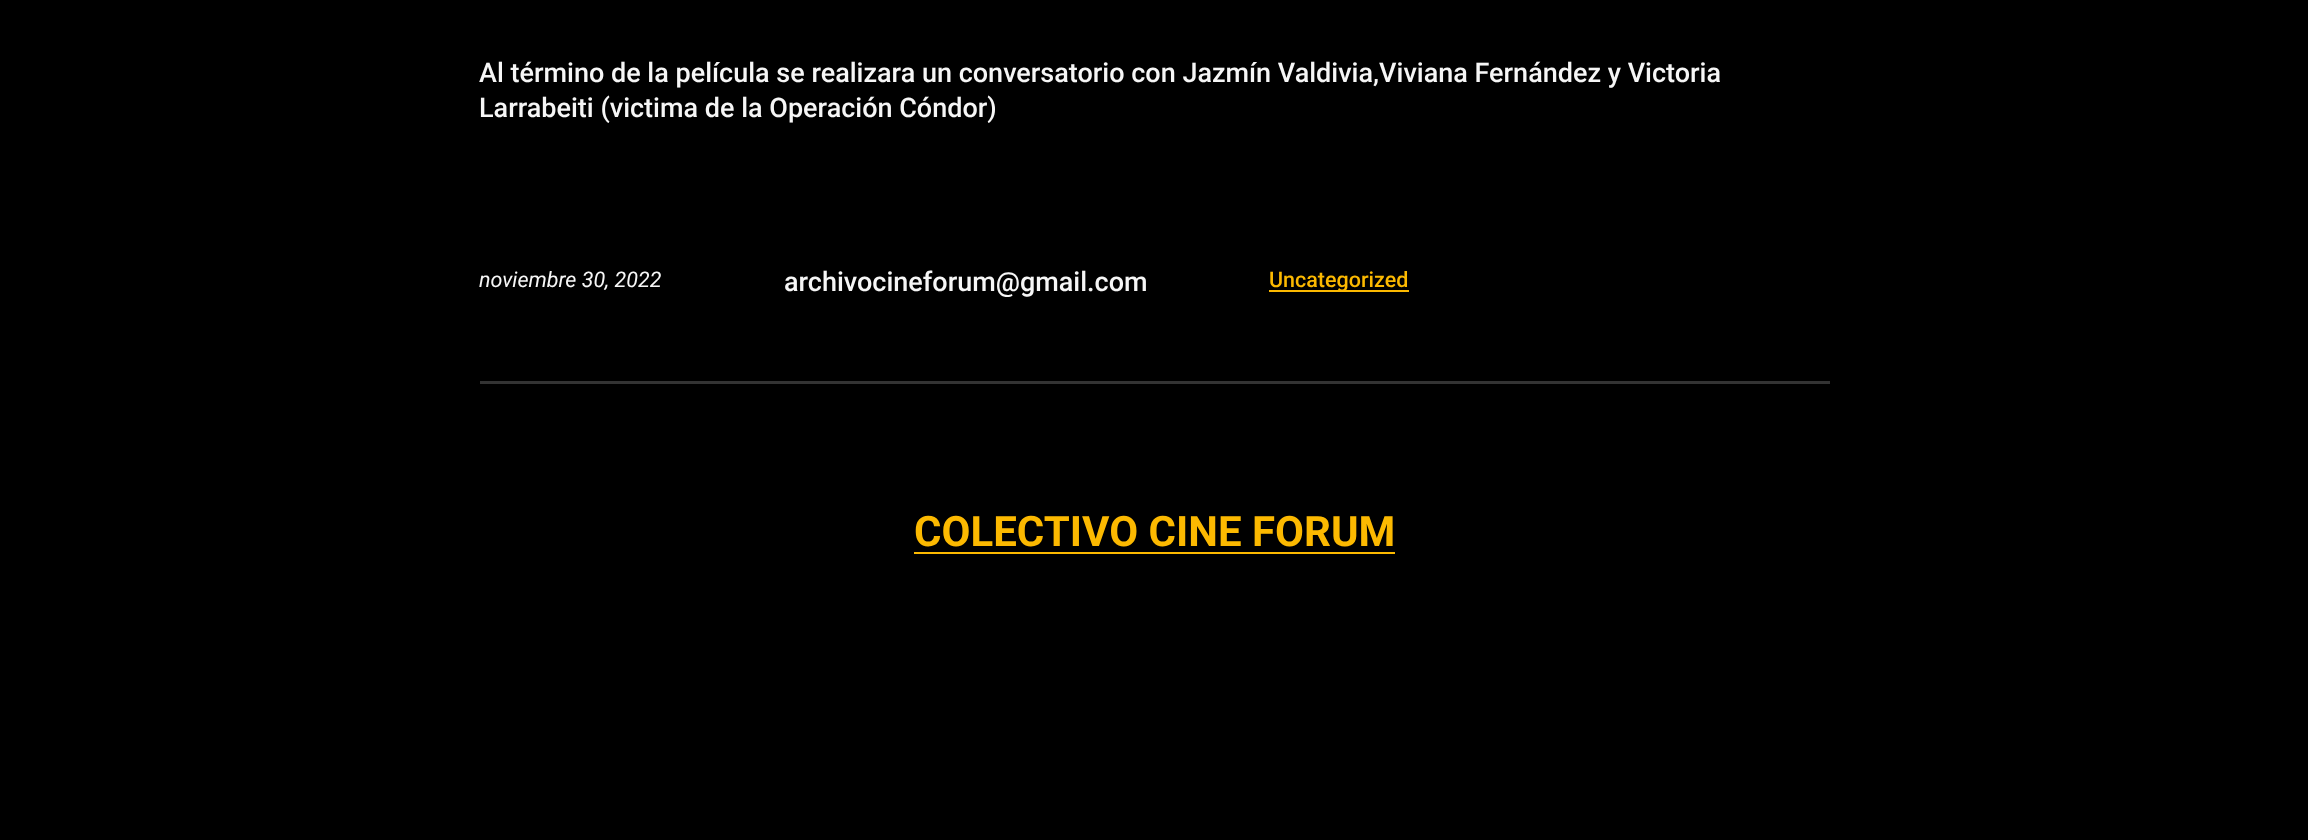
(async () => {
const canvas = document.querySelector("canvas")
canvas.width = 2308
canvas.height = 840
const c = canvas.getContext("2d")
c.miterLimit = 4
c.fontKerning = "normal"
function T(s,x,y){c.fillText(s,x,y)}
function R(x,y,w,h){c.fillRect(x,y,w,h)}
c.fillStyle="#000"
R(0,0,2308,840)
c.font="500 27px Roboto"
c.fillStyle="#f6f6f6"
T("Al término de la película se realizara un conversatorio con Jazmín Valdivia,Viviana Fernández y Victoria",479,82)
T("Larrabeiti (victima de la Operación Cóndor)",479,117)
c.font="italic 21.5px Roboto"
T("noviembre 30, 2022",479,287)
c.font="500 27px Roboto"
T("archivocineforum@gmail.com",784,291)
c.fillStyle="#fcb900"
R(1269,290,140,2)
c.font="500 21.5px Roboto"
T("Uncategorized",1269,287)
c.fillStyle="#333"
R(480,381,1350,3)
c.font="bold 42px Roboto"
c.fillStyle="#fcb900"
T("COLECTIVO CINE FORUM",914,546)
R(914,552,481,2)
})()
